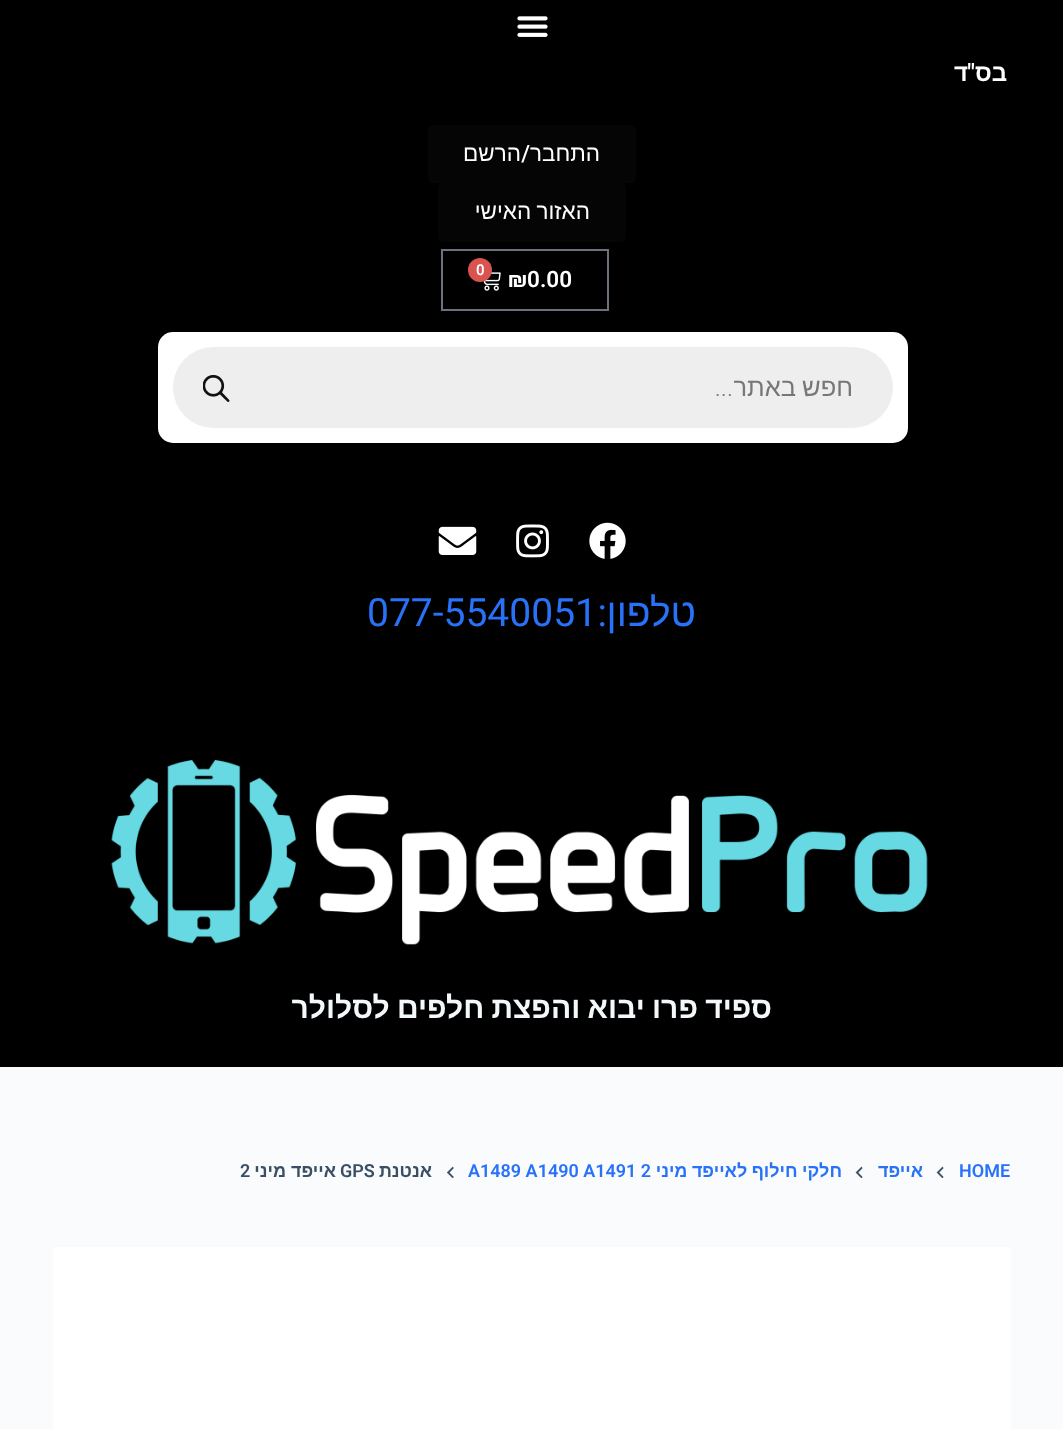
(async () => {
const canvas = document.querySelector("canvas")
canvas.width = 1063
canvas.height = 1429
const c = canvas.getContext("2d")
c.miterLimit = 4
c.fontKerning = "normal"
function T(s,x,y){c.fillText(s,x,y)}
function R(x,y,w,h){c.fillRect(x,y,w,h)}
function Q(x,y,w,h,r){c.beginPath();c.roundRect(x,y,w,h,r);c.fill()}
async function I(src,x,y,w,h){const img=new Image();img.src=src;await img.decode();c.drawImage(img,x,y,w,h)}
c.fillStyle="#fafbfc"
R(0,0,1063,1429)
c.fillStyle="#000"
R(0,0,1063,1067)
await I("1.png",517,16,31,21)
c.direction="rtl"
c.font="bold 24px Liberation Sans"
c.fillStyle="#fff"
T("בס",1007,81)
c.font="600 24px Roboto"
T("\"",975,81)
c.font="bold 24px Liberation Sans"
T("ד",968,81)
c.fillStyle="#050505"
Q(428,125,208,58,5)
c.font="22.5px Liberation Sans"
c.fillStyle="#fff"
T("התחבר",600,161)
c.font="500 22.5px Roboto"
T("/",530,161)
c.font="22.5px Liberation Sans"
T("הרשם",521,161)
c.fillStyle="#050505"
Q(438,183,188,59,5)
c.wordSpacing="-1px"
c.fillStyle="#fff"
T("האזור האישי",590,219)
c.strokeStyle="#69727d"
c.lineWidth=2
c.strokeRect(442,250,166,60)
c.wordSpacing="0px"
c.direction="ltr"
c.font="600 22.5px Roboto"
T("₪0.00",508,287)
await I("2.png",483,272,18,19)
c.fillStyle="#d9534f"
c.beginPath()
c.arc(480,270,12,0,7)
c.fill()
c.font="600 15px Roboto"
c.fillStyle="#fff"
T("0",476,275)
Q(158,332,750,111,15)
c.fillStyle="#eee"
Q(173,347,720,81,40.5)
c.wordSpacing="-1px"
c.direction="rtl"
c.font="25.5px Liberation Sans"
c.fillStyle="#777"
T("חפש באתר",853,396)
c.wordSpacing="0px"
c.font="300 25.5px Roboto"
T("...",733,396)
await I("3.png",203,375,27,27)
await I("4.png",589,522,37,37)
await I("5.png",516,524,33,34)
await I("6.png",438,526,39,29)
c.font="39px Liberation Sans"
c.fillStyle="#2872fa"
T("טלפון",696,626)
c.font="39px Roboto"
T(":",607,626)
c.direction="ltr"
T("077-5540051",367,626)
await I("7.png",111,760,817,185)
c.wordSpacing="-1px"
c.direction="rtl"
c.font="bold 30px Liberation Sans"
c.fillStyle="#f3f8fb"
T("ספיד פרו יבוא והפצת חלפים לסלולר",772,1018)
c.wordSpacing="0px"
c.direction="ltr"
c.font="600 18px Roboto"
c.fillStyle="#2872fa"
T("HOME",959,1177)
await I("8.png",936,1166,8,12)
c.direction="rtl"
c.font="bold 18px Liberation Sans"
T("אייפד",923,1177)
await I("8.png",855,1166,8,12)
c.wordSpacing="-0.5px"
T("חלקי חילוף לאייפד מיני",842,1177)
c.wordSpacing="0px"
c.direction="ltr"
c.font="600 18px Roboto"
T("A1489 A1490 A1491 2",468,1177)
await I("9.png",446,1166,8,12)
c.direction="rtl"
c.font="bold 18px Liberation Sans"
c.fillStyle="#3a4f66"
T("אנטנת",432,1177)
c.direction="ltr"
c.font="600 18px Roboto"
T("GPS",340,1177)
c.direction="rtl"
c.font="bold 18px Liberation Sans"
T("אייפד מיני",336,1177)
c.direction="ltr"
c.font="600 18px Roboto"
T("2",240,1177)
c.fillStyle="#fff"
R(53,1247,958,182)
})()
